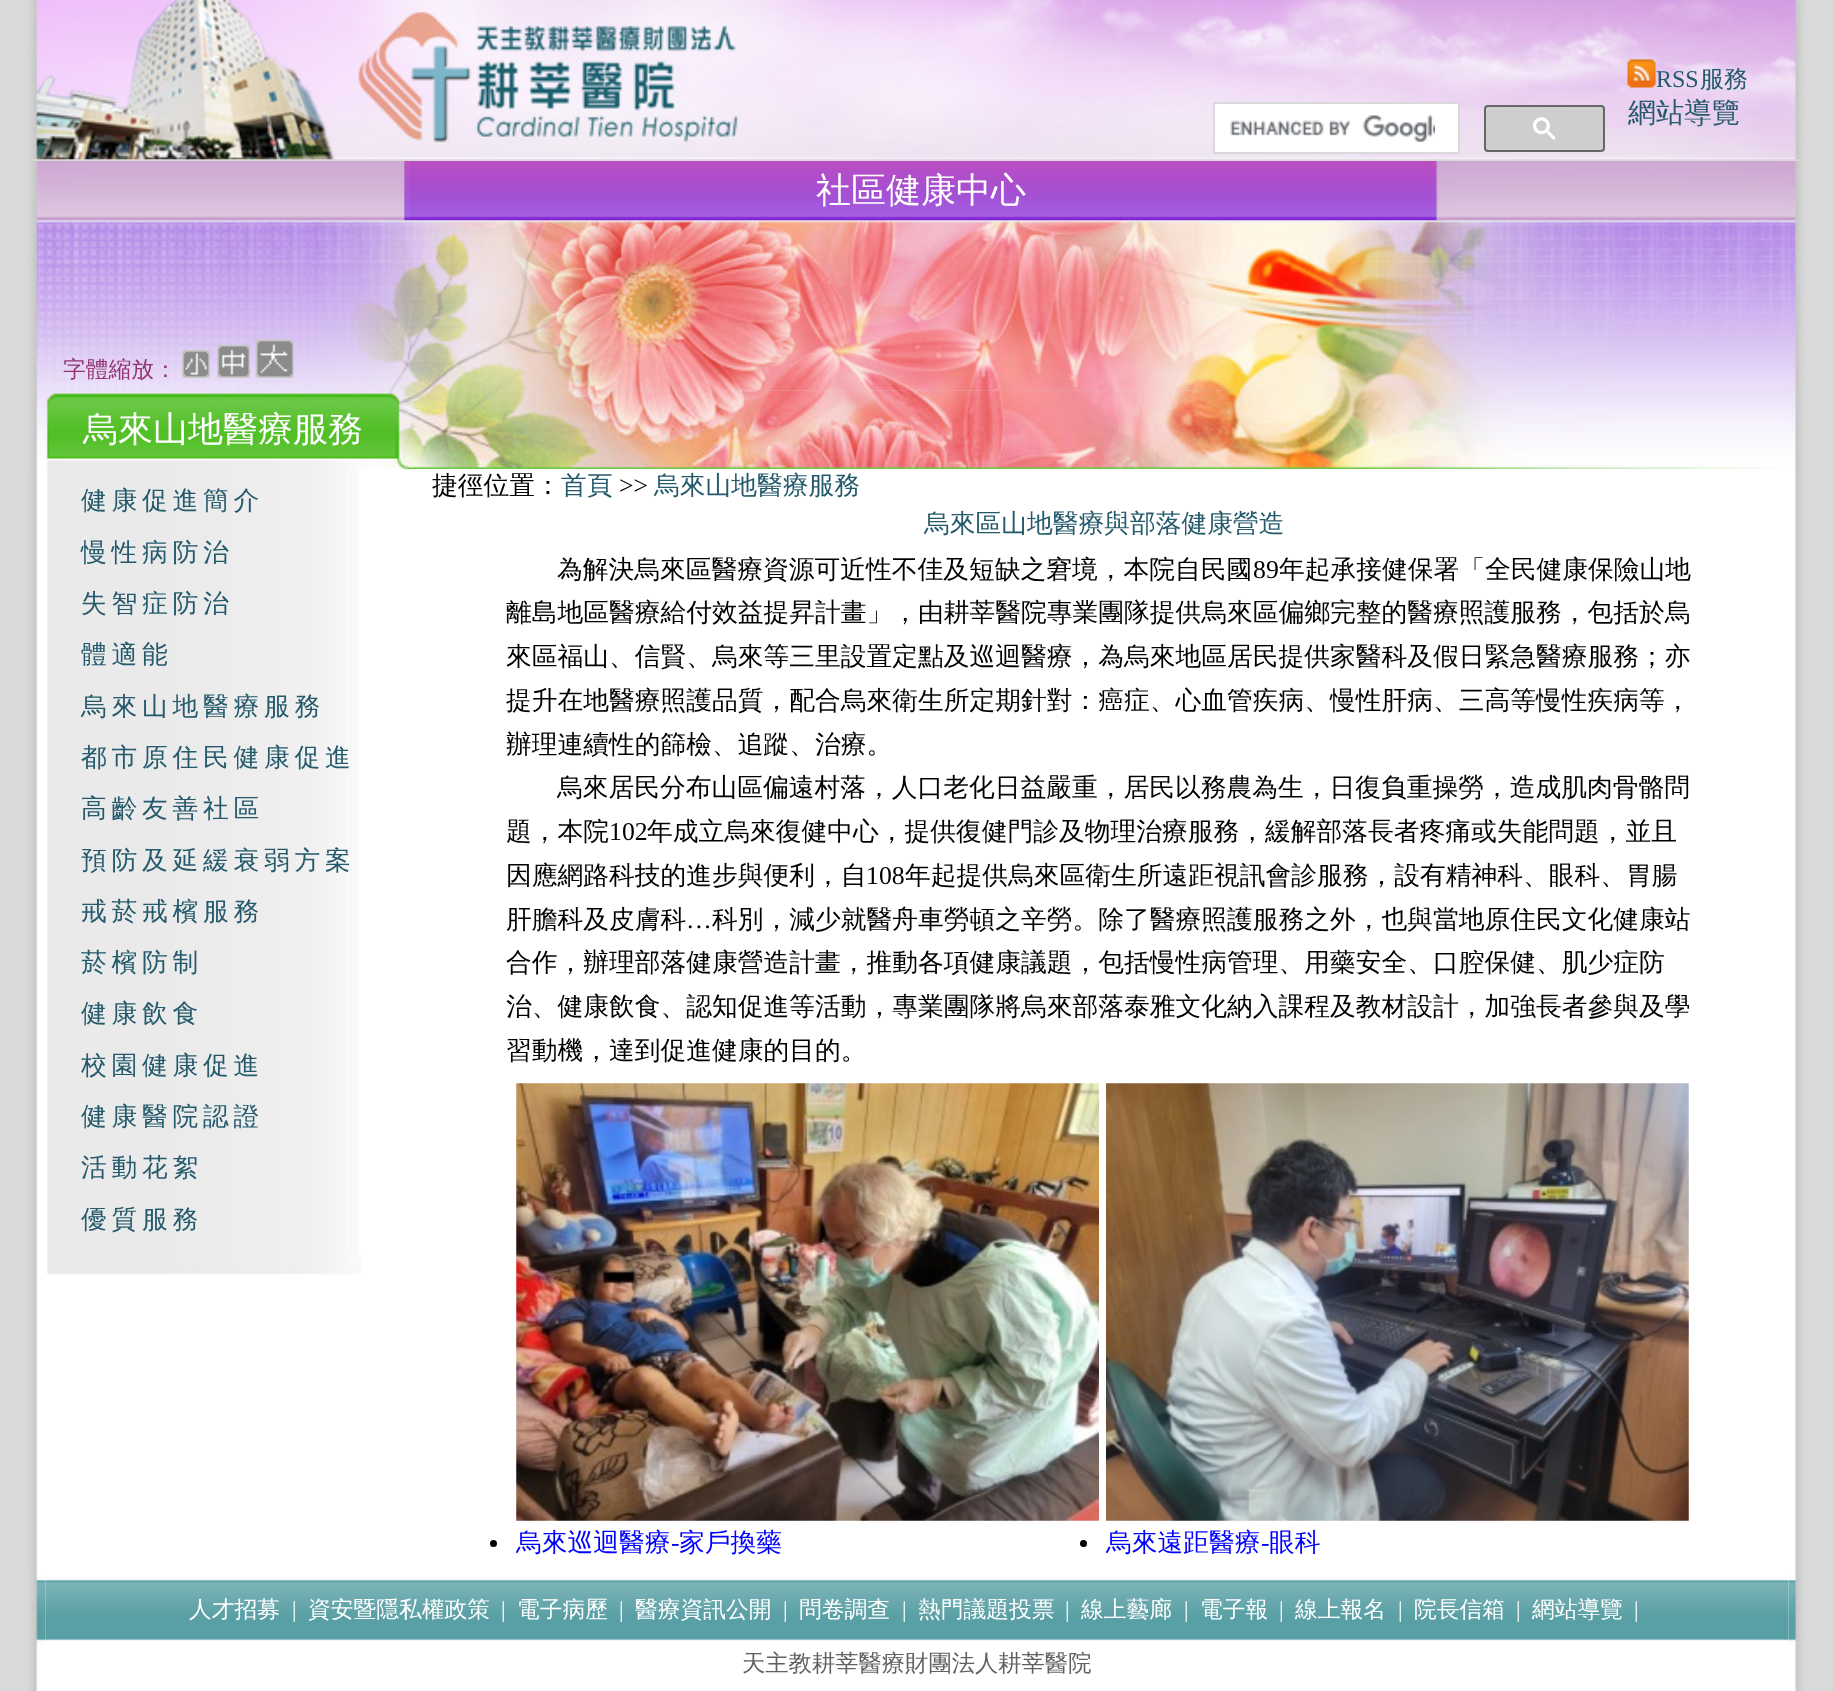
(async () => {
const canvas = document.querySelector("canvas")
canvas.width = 1833
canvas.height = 1691
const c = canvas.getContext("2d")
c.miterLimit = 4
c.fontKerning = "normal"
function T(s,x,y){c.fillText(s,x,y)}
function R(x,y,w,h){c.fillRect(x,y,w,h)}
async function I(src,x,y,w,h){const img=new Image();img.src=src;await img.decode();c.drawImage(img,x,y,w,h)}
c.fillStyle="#d9d9d9"
R(0,0,1833,1691)
await I("1.png",28,0,1778,160)
c.fillStyle="#fff"
c.beginPath()
c.rect(1214,103,245,50)
c.fill()
c.strokeStyle="#d9d9d9"
c.lineWidth=2
c.stroke()
await I("2.png",1230,115,205,27)
c.fillStyle="#cecece"
c.beginPath()
c.roundRect(1485,106,119,45,3)
c.fill()
c.strokeStyle="#666"
c.stroke()
await I("3.png",1533,117,23,23)
await I("4.png",1627,59,29,29)
c.font="24px Liberation Serif"
c.fillStyle="#245a6c"
T("RSS",1656,87)
c.font="500 24px WenQuanYi Zen Hei"
T("服務",1700,87)
c.font="500 28px WenQuanYi Zen Hei"
T("網站導覽",1628,122)
await I("5.png",28,161,377,60)
await I("6.png",404,161,1033,60)
c.font="500 35px WenQuanYi Zen Hei"
c.fillStyle="#fff"
T("社區健康中心",816,202)
await I("7.png",1436,161,367,60)
await I("8.png",28,220,1778,171)
c.font="500 22.75px WenQuanYi Zen Hei"
c.fillStyle="#933472"
T("字體縮放：",63,377)
await I("9.png",182,350,28,28)
await I("10.png",217,344,34,34)
await I("11.png",255,339,39,39)
await I("12.png",28,390,377,79)
c.font="500 35px WenQuanYi Zen Hei"
c.fillStyle="#fff"
T("烏來山地醫療服務",83,441)
await I("13.png",404,390,1400,79)
R(38,469,1757,1222)
await I("14.png",28,469,10,1106)
await I("15.png",47,469,312,784)
c.letterSpacing="4.75px"
c.font="500 25.75px WenQuanYi Zen Hei"
c.fillStyle="#245a6c"
T("健康促進簡介",81,509)
T("慢性病防治",81,561)
T("失智症防治",81,612)
T("體適能",81,663)
T("烏來山地醫療服務",81,715)
T("都市原住民健康促進",81,766)
T("高齡友善社區",81,817)
T("預防及延緩衰弱方案",81,869)
T("戒菸戒檳服務",81,920)
T("菸檳防制",81,971)
T("健康飲食",81,1022)
T("校園健康促進",81,1074)
T("健康醫院認證",81,1125)
T("活動花絮",81,1176)
T("優質服務",81,1228)
await I("16.png",47,1253,315,22)
c.letterSpacing="0px"
c.fillStyle="#000"
T("捷徑位置：",432,494)
c.fillStyle="#245a6c"
T("首頁",561,494)
c.font="25.75px Liberation Serif"
c.fillStyle="#000"
T(">>",619,494)
c.font="500 25.75px WenQuanYi Zen Hei"
c.fillStyle="#245a6c"
T("烏來山地醫療服務",654,494)
T("烏來區山地醫療與部落健康營造",924,532)
c.fillStyle="#000"
T("為解決烏來區醫療資源可近性不佳及短缺之窘境，本院自民國",557,578)
c.font="25.75px Liberation Serif"
T("89",1253,578)
c.font="500 25.75px WenQuanYi Zen Hei"
T("年起承接健保署「全民健康保險山地",1279,578)
T("離島地區醫療給付效益提昇計畫」，由耕莘醫院專業團隊提供烏來區偏鄉完整的醫療照護服務，包括於烏",506,621)
T("來區福山、信賢、烏來等三里設置定點及巡迴醫療，為烏來地區居民提供家醫科及假日緊急醫療服務；亦",506,665)
T("提升在地醫療照護品質，配合烏來衛生所定期針對：癌症、心血管疾病、慢性肝病、三高等慢性疾病等，",506,709)
T("辦理連續性的篩檢、追蹤、治療。",506,753)
T("烏來居民分布山區偏遠村落，人口老化日益嚴重，居民以務農為生，日復負重操勞，造成肌肉骨骼問",557,796)
T("題，本院",506,840)
c.font="25.75px Liberation Serif"
T("102",609,840)
c.font="500 25.75px WenQuanYi Zen Hei"
T("年成立烏來復健中心，提供復健門診及物理治療服務，緩解部落長者疼痛或失能問題，並且",647,840)
T("因應網路科技的進步與便利，自",506,884)
c.font="25.75px Liberation Serif"
T("108",866,884)
c.font="500 25.75px WenQuanYi Zen Hei"
T("年起提供烏來區衛生所遠距視訊會診服務，設有精神科、眼科、胃腸",905,884)
T("肝膽科及皮膚科",506,928)
c.font="25.75px Liberation Serif"
T("…",686,928)
c.font="500 25.75px WenQuanYi Zen Hei"
T("科別，減少就醫舟車勞頓之辛勞。除了醫療照護服務之外，也與當地原住民文化健康站",712,928)
T("合作，辦理部落健康營造計畫，推動各項健康議題，包括慢性病管理、用藥安全、口腔保健、肌少症防",506,971)
T("治、健康飲食、認知促進等活動，專業團隊將烏來部落泰雅文化納入課程及教材設計，加強長者參與及學",506,1015)
T("習動機，達到促進健康的目的。",506,1059)
await I("17.png",516,1083,583,438)
c.beginPath()
c.arc(493.5,1543.5,3.5,0,7)
c.fill()
c.fillStyle="#00f"
T("烏來巡迴醫療",516,1551)
c.font="25.75px Liberation Serif"
T("-",671,1551)
c.font="500 25.75px WenQuanYi Zen Hei"
T("家戶換藥",679,1551)
await I("18.png",1106,1083,583,438)
c.fillStyle="#000"
c.beginPath()
c.arc(1083.5,1543.5,3.5,0,7)
c.fill()
c.fillStyle="#00f"
T("烏來遠距醫療",1106,1551)
c.font="25.75px Liberation Serif"
T("-",1261,1551)
c.font="500 25.75px WenQuanYi Zen Hei"
T("眼科",1269,1551)
await I("19.png",1795,469,11,1106)
await I("21.png",45,1579,1744,62)
await I("20.png",28,1575,18,70)
c.font="500 22.75px WenQuanYi Zen Hei"
c.fillStyle="#fff"
T("人才招募",189,1617)
c.font="22.75px Liberation Serif"
T("|",292,1617)
c.font="500 22.75px WenQuanYi Zen Hei"
T("資安暨隱私權政策",308,1617)
c.font="22.75px Liberation Serif"
T("|",501,1617)
c.font="500 22.75px WenQuanYi Zen Hei"
T("電子病歷",517,1617)
c.font="22.75px Liberation Serif"
T("|",619,1617)
c.font="500 22.75px WenQuanYi Zen Hei"
T("醫療資訊公開",635,1617)
c.font="22.75px Liberation Serif"
T("|",783,1617)
c.font="500 22.75px WenQuanYi Zen Hei"
T("問卷調查",799,1617)
c.font="22.75px Liberation Serif"
T("|",902,1617)
c.font="500 22.75px WenQuanYi Zen Hei"
T("熱門議題投票",918,1617)
c.font="22.75px Liberation Serif"
T("|",1065,1617)
c.font="500 22.75px WenQuanYi Zen Hei"
T("線上藝廊",1081,1617)
c.font="22.75px Liberation Serif"
T("|",1184,1617)
c.font="500 22.75px WenQuanYi Zen Hei"
T("電子報",1200,1617)
c.font="22.75px Liberation Serif"
T("|",1279,1617)
c.font="500 22.75px WenQuanYi Zen Hei"
T("線上報名",1295,1617)
c.font="22.75px Liberation Serif"
T("|",1398,1617)
c.font="500 22.75px WenQuanYi Zen Hei"
T("院長信箱",1414,1617)
c.font="22.75px Liberation Serif"
T("|",1516,1617)
c.font="500 22.75px WenQuanYi Zen Hei"
T("網站導覽",1532,1617)
c.font="22.75px Liberation Serif"
T("|",1634,1617)
await I("22.png",1788,1575,18,70)
await I("23.png",28,1645,10,46)
c.font="500 23.3px WenQuanYi Zen Hei"
c.fillStyle="#616161"
T("天主教耕莘醫療財團法人耕莘醫院",742,1671)
await I("24.png",1795,1645,11,46)
})()
